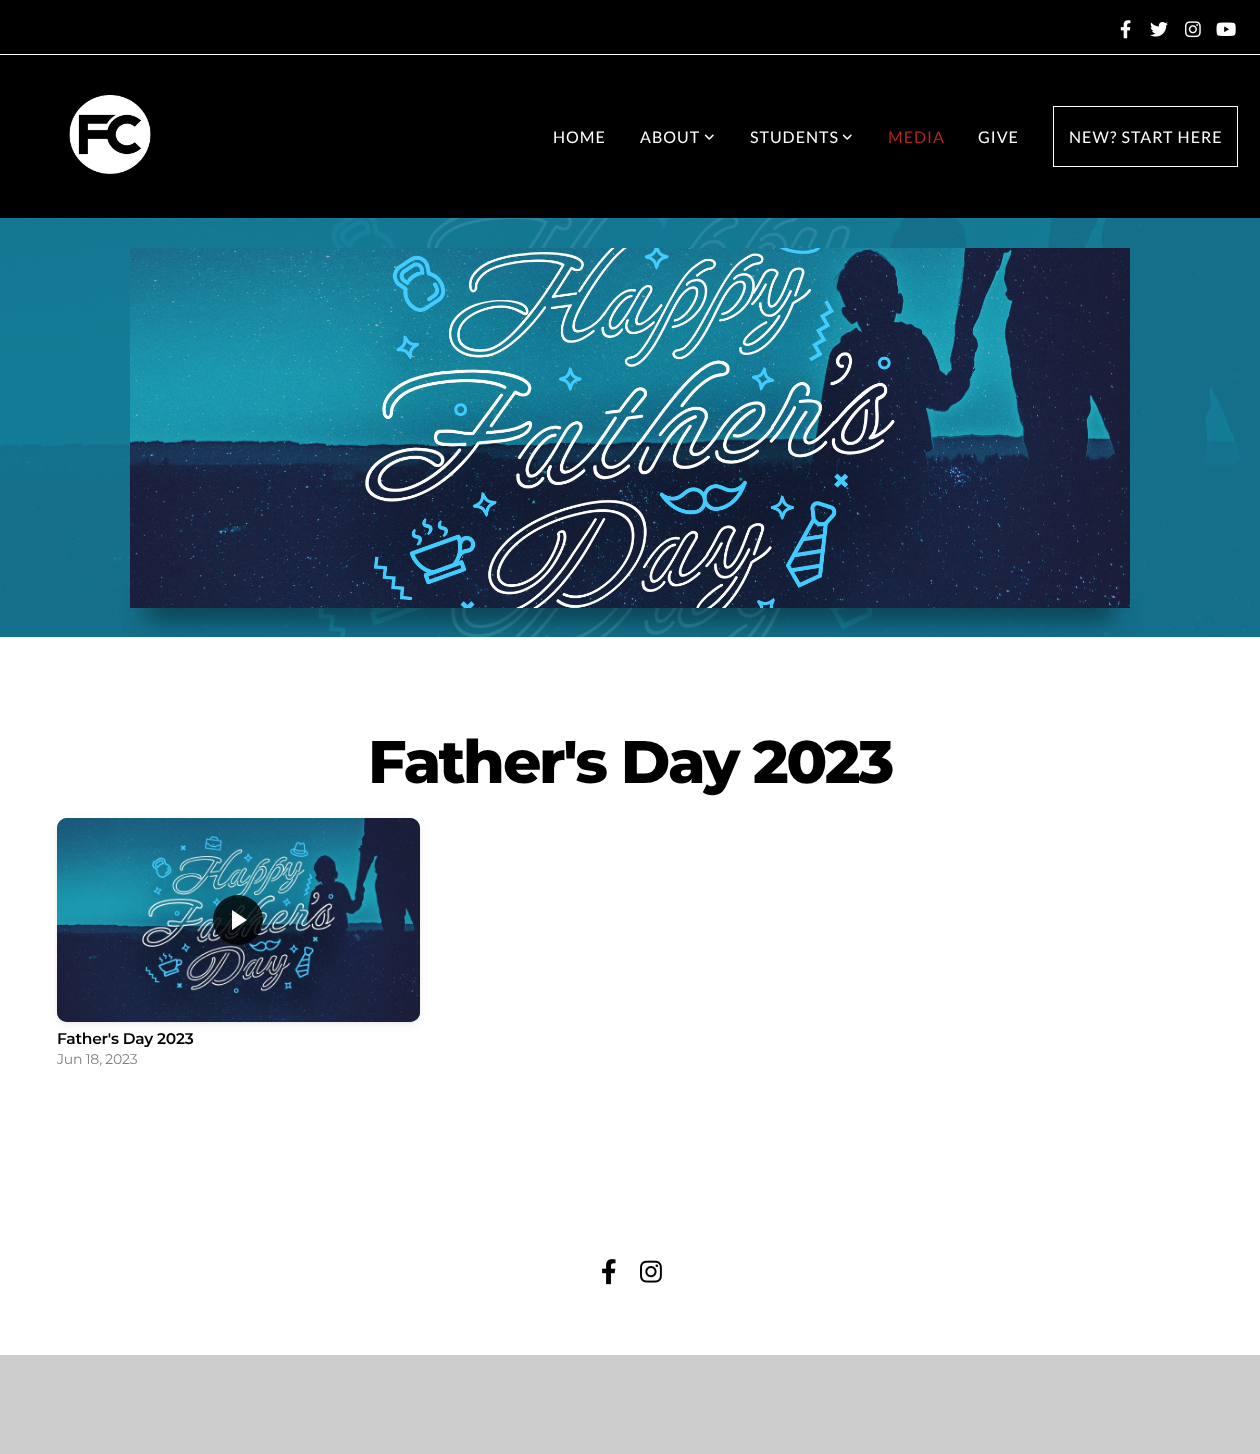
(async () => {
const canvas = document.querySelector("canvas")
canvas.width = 1260
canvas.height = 1454
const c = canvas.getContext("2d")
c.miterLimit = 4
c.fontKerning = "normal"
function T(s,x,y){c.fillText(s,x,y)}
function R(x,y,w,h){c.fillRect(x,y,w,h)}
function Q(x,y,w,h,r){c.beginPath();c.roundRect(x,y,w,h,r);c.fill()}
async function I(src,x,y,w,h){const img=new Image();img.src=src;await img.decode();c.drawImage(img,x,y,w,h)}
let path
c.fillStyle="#ccc"
R(0,0,1260,1454)
c.fillStyle="#000"
R(0,0,1260,218)
c.fillStyle="#fff"
R(0,54,1260,1)
await I("1.png",1120,20,11,19)
await I("2.png",1150,22,18,15)
await I("3.png",1185,21,16,17)
await I("4.png",1216,22,20,14)
await I("5.png",69,95,82,79)
c.letterSpacing="1px"
c.font="16px Lato"
T("HOME",553,143)
T("ABOUT",640,143)
await I("6.png",704,134,10,6)
T("STUDENTS",750,143)
await I("6.png",842,134,10,6)
c.fillStyle="#b22222"
T("MEDIA",888,143)
c.fillStyle="#fff"
T("GIVE",978,143)
c.strokeStyle="#fff"
c.strokeRect(1053.5,106.5,184,60)
T("NEW? START HERE",1069,143)
await I("7.png",0,218,1260,419)
c.fillStyle="#00000080"
c.filter="blur(12.5px)"
c.beginPath()
c.roundRect(144,597,972,22,11)
c.fill()
c.filter="none"
await I("8.png",130,248,1000,360)
c.fillStyle="#fff"
R(0,637,1260,718)
c.letterSpacing="-2.4px"
c.font="800 60px Montserrat"
c.fillStyle="#000"
T("Father's Day 2023",368,783)
c.fillStyle="#0000000a"
c.filter="blur(1px)"
c.beginPath()
c.roundRect(57,819,363,204,10)
c.fill()
c.filter="none"
c.fillStyle="#0000000f"
c.filter="blur(5px)"
c.beginPath()
c.roundRect(57,821,363,204,10)
c.fill()
c.filter="none"
c.fillStyle="#275974"
Q(57,818,363,204,10)
await I("9.png",57,818,363,204)
c.fillStyle="#000000cc"
c.beginPath()
c.arc(238,920,25,0,7)
c.fill()
c.fillStyle="#fff"
path = new Path2D("M232 930v-20l15 10z")
c.fill(path)
c.letterSpacing="-0.25px"
c.font="600 15.5px Montserrat"
c.fillStyle="#000"
T("Father's Day 2023",57,1044)
c.font="14px Montserrat"
c.fillStyle="#808080"
T("Jun 18, 2023",57,1064)
await I("10.png",602,1259,14,26)
await I("11.png",640,1260,22,23)
})()
